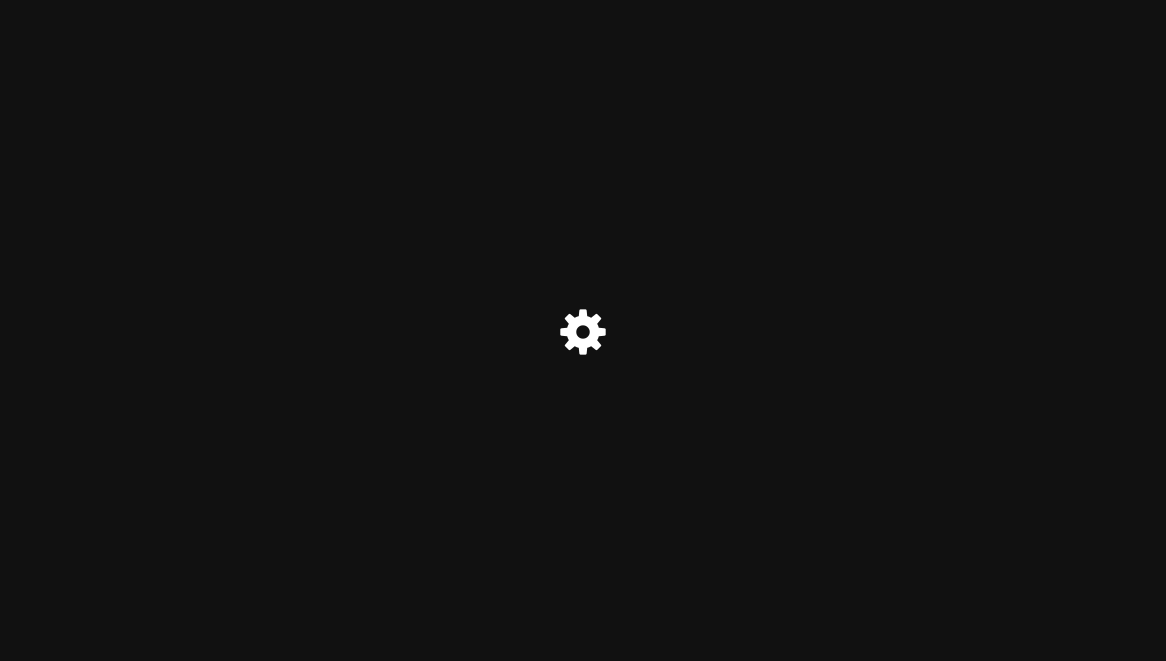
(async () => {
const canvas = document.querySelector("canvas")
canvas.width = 1166
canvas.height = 661
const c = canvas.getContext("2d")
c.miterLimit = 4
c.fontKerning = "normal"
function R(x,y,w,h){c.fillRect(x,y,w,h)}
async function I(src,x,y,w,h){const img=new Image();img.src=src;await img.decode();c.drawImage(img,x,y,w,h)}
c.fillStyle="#111"
R(0,0,1166,661)
await I("1.png",560,309,46,46)
})()
